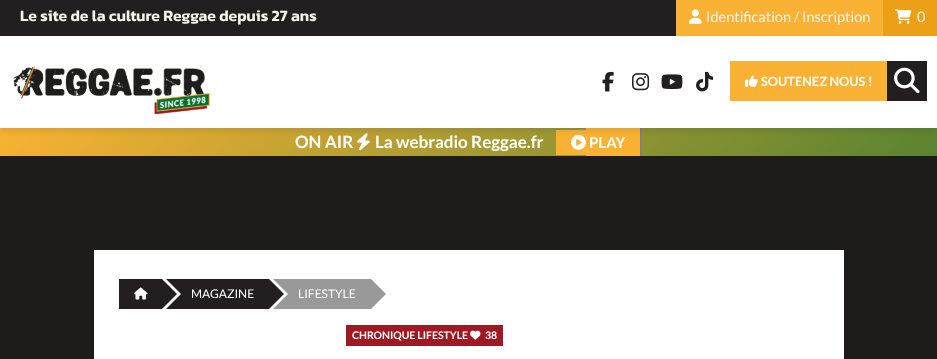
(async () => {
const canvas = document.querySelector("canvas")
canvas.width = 937
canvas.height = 359
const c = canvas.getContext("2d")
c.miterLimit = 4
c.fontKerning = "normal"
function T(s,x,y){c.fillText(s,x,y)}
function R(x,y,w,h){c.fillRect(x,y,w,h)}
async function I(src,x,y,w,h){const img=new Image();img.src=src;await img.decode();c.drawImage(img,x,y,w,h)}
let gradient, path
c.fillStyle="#1e1c1a"
R(0,0,937,359)
c.fillStyle="#231f20"
R(0,0,676,36)
c.font="600 15.75px Kanit"
c.fillStyle="#f8f3ed"
T("Le site de la culture Reggae depuis 27 ans",20,21)
c.fillStyle="#f9b233"
R(676,0,207,36)
await I("1.png",689,9,13,15)
c.font="14.5px Lato"
c.fillStyle="#f8f3ed"
T("Identification / Inscription",706,22)
c.fillStyle="#eca018"
R(883,0,54,36)
await I("2.png",895,9,17,15)
c.fillStyle="#f8f3ed"
T("0",917,22)
gradient = c.createLinearGradient(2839,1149,909,-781)
gradient.addColorStop(0,"#106e31")
gradient.addColorStop(.33,"#f9b233")
gradient.addColorStop(.67,"#267531")
gradient.addColorStop(1,"#f9b233")
c.fillStyle = gradient
R(0,128,937,28)
await I("10.png",357,133,13,18)
c.fillStyle="#f9b233"
R(556,130,30,25)
R(586,128,54,28)
c.fillStyle="#808080"
R(640,128,2,28)
await I("11.png",571,134,15,16)
c.fillStyle="#00000014"
c.filter="blur(2.5px)"
c.beginPath()
c.rect(0,40,937,92)
c.fill()
c.filter="none"
c.fillStyle="#fff"
R(0,36,937,92)
await I("3.png",13,65,197,49)
await I("4.png",602,71,12,21)
await I("5.png",632,73,18,18)
await I("6.png",661,74,22,15)
await I("7.png",696,71,18,21)
c.fillStyle="#f9b233"
R(730,61,157,40)
await I("8.png",745,75,13,12)
c.font="bold 12.75px Lato"
c.fillStyle="#fff"
T("SOUTENEZ NOUS !",761,86)
c.fillStyle="#231f20"
R(887,61,40,40)
await I("9.png",894,67,26,27)
c.font="bold 17px Lato"
c.fillStyle="#fff"
T("ON AIR",295,148)
T("La webradio Reggae.fr",375,148)
c.font="bold 15px Lato"
T("PLAY",589,148)
R(94,250,750,109)
c.fillStyle="#231f20"
R(119,279,43,30)
await I("12.png",134,287,14,13)
R(166,279,103,30)
c.fillStyle="#fff"
path = new Path2D("M166 309v-30l15 15z")
c.fill(path)
c.fillStyle="#231f20"
path = new Path2D("M162 309v-30l15 15z")
c.fill(path)
c.font="12px Lato"
c.fillStyle="#fff"
T("MAGAZINE",191,298)
c.fillStyle="#999"
R(273,279,98,30)
c.fillStyle="#fff"
path = new Path2D("M273 309v-30l15 15z")
c.fill(path)
c.fillStyle="#231f20"
path = new Path2D("M269 309v-30l15 15z")
c.fill(path)
c.fillStyle="#fff"
T("LIFESTYLE",298,298)
c.fillStyle="#999"
path = new Path2D("M371 309v-30l15 15z")
c.fill(path)
c.fillStyle="#9e1922"
R(346,325,157,21)
c.font="bold 10.5px Lato"
c.fillStyle="#fff"
T("CHRONIQUE LIFESTYLE",352,339)
await I("13.png",470,330,11,10)
T("38",485,339)
})()
